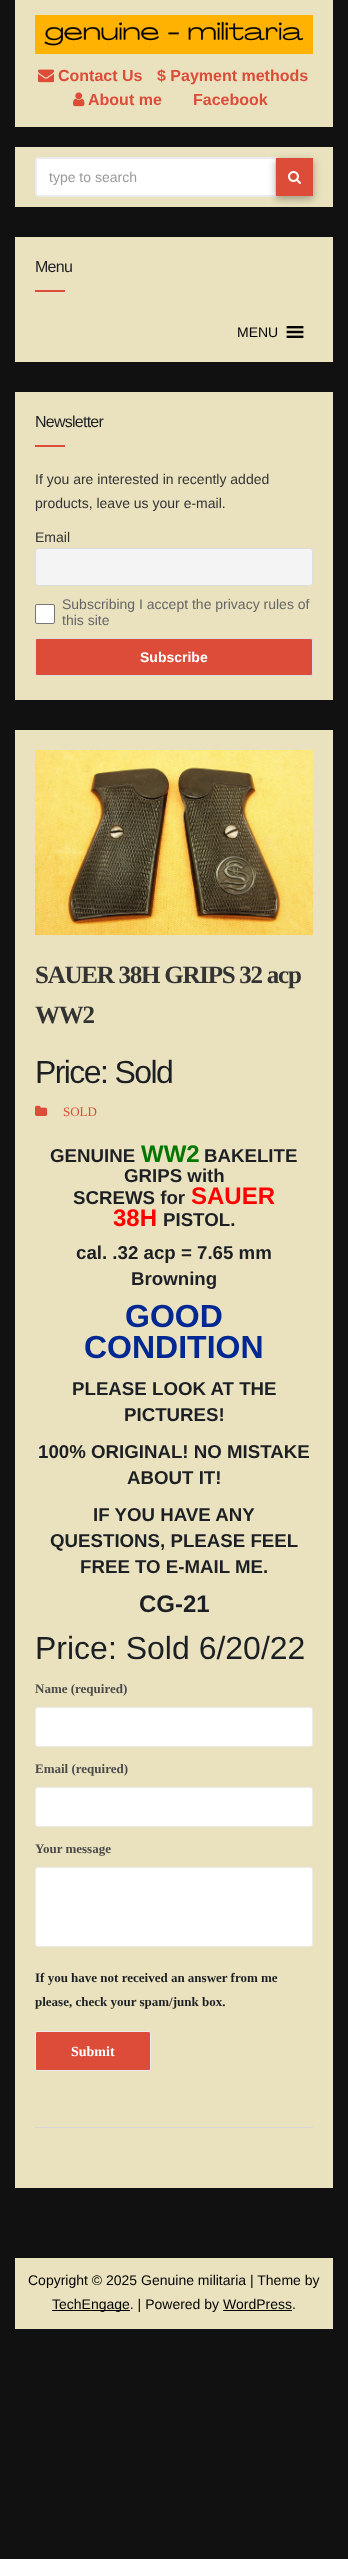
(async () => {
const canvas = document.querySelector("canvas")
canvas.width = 348
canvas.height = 2559
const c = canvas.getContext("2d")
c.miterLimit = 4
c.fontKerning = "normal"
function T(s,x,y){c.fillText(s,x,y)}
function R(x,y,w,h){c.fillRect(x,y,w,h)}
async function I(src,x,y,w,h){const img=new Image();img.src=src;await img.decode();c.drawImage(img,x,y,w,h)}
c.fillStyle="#111"
R(0,0,348,2559)
c.fillStyle="#eae2be"
R(15,0,318,127)
await I("1.png",35,15,278,39)
await I("2.png",38,69,16,14)
c.font="bold 16px Liberation Sans"
c.fillStyle="#dd4c39"
T("Contact Us",58,81)
T("$ Payment methods",157,81)
await I("3.png",73,92,12,15)
T("About me",88,105)
T("Facebook",193,105)
c.fillStyle="#eae2be"
R(15,147,318,60)
c.fillStyle="#fff"
c.beginPath()
c.roundRect(36,158,240,38,[2,0,0,2])
c.fill()
c.strokeStyle="#ebebeb"
c.lineWidth=2
c.stroke()
c.font="14px Liberation Sans"
c.fillStyle="#999"
T("type to search",49,182)
c.fillStyle="#00000029"
c.filter="blur(3px)"
c.beginPath()
c.rect(276,161,37,38)
c.fill()
c.filter="none"
c.fillStyle="#0000002e"
c.filter="blur(5px)"
c.beginPath()
c.rect(276,161,37,38)
c.fill()
c.filter="none"
c.fillStyle="#dd4c39"
R(276,158,37,38)
await I("4.png",288,171,13,13)
c.fillStyle="#eae2be"
R(15,237,318,125)
c.letterSpacing="-0.75px"
c.font="16px Liberation Sans"
c.fillStyle="#1c1f24"
T("Menu",35,272)
c.fillStyle="#dd4c39"
R(35,290,30,2)
c.letterSpacing="0px"
c.font="14px Liberation Sans"
c.fillStyle="#000"
T("MENU",237,337)
await I("5.png",286,326,18,12)
c.fillStyle="#eae2be"
R(15,392,318,308)
c.letterSpacing="-0.75px"
c.font="16px Liberation Sans"
c.fillStyle="#1c1f24"
T("Newsletter",35,427)
c.fillStyle="#dd4c39"
R(35,445,30,2)
c.letterSpacing="0px"
c.font="14px Liberation Sans"
c.fillStyle="#333"
T("If you are interested in recently added",35,484)
T("products, leave us your e-mail.",35,508)
T("Email",35,542)
c.fillStyle="#f4f4f4"
c.beginPath()
c.roundRect(35.5,548.5,277,37,2.5)
c.fill()
c.strokeStyle="#ddd"
c.lineWidth=1
c.stroke()
c.fillStyle="#fff"
c.beginPath()
c.roundRect(35.5,604.5,19,19,1.5)
c.fill()
c.strokeStyle="#767676"
c.stroke()
c.fillStyle="#666"
T("Subscribing I accept the privacy rules of",62,609)
T("this site",62,625)
c.fillStyle="#dd4c39"
c.beginPath()
c.roundRect(35.5,638.5,277,37,1.5)
c.fill()
c.strokeStyle="#ddd"
c.stroke()
c.font="bold 14px Liberation Sans"
c.fillStyle="#fff"
T("Subscribe",140,662)
c.fillStyle="#eae2be"
R(15,730,318,1458)
c.fillStyle="#d5d5d5"
R(35,2127,278,1)
await I("6.png",35,750,278,185)
c.letterSpacing="-1.25px"
c.font="bold 25px Liberation Serif"
c.fillStyle="#333"
T("SAUER 38H GRIPS 32 acp",35,983)
T("WW2",35,1023)
c.letterSpacing="-1.6px"
c.font="32px Liberation Sans"
c.fillStyle="#1c1f24"
T("Price: Sold",35,1083)
await I("7.png",35,1105,13,11)
c.letterSpacing="0px"
c.font="13px Liberation Serif"
c.fillStyle="#dd4c39"
T("SOLD",63,1116)
c.font="bold 18.7px Liberation Sans"
c.fillStyle="#1c1f24"
T("GENUINE",50,1162)
c.font="bold 24px Liberation Sans"
c.fillStyle="#070"
T("WW2",141,1162)
c.font="bold 18.7px Liberation Sans"
c.fillStyle="#1c1f24"
T("BAKELITE",204,1162)
T("GRIPS with",124,1182)
T("SCREWS for",73,1204)
c.font="bold 24px Liberation Sans"
c.fillStyle="#f00"
T("SAUER",191,1204)
T("38H",113,1226)
c.font="bold 18.7px Liberation Sans"
c.fillStyle="#1c1f24"
T("PISTOL.",163,1226)
T("cal. .32 acp = 7.65 mm",76,1259)
T("Browning",131,1285)
c.font="bold 32px Liberation Sans"
c.fillStyle="#002892"
T("GOOD",125,1327)
T("CONDITION",84,1358)
c.font="bold 18.7px Liberation Sans"
c.fillStyle="#1c1f24"
T("PLEASE LOOK AT THE",72,1395)
T("PICTURES!",124,1421)
T("100% ORIGINAL! NO MISTAKE",38,1458)
T("ABOUT IT!",127,1484)
T("IF YOU HAVE ANY",93,1521)
T("QUESTIONS, PLEASE FEEL",50,1547)
T("FREE TO E-MAIL ME.",80,1573)
c.font="bold 24px Liberation Sans"
T("CG-21",139,1612)
c.font="32px Liberation Sans"
T("Price: Sold 6/20/22",35,1659)
c.font="bold 13px Liberation Serif"
c.fillStyle="#4a4a4a"
T("Name (required)",35,1693)
c.fillStyle="#fff"
c.beginPath()
c.roundRect(35.5,1707.5,277,39,2.5)
c.fill()
c.strokeStyle="#ebebeb"
c.stroke()
c.fillStyle="#4a4a4a"
T("Email (required)",35,1773)
c.fillStyle="#fff"
c.beginPath()
c.roundRect(35.5,1787.5,277,39,2.5)
c.fill()
c.stroke()
c.fillStyle="#4a4a4a"
T("Your message",35,1853)
c.fillStyle="#fff"
c.beginPath()
c.roundRect(35.5,1867.5,277,79,2.5)
c.fill()
c.stroke()
c.fillStyle="#1c1f24"
T("If you have not received an answer from me",35,1982)
T("please, check your spam/junk box.",35,2006)
c.fillStyle="#dd4c39"
c.beginPath()
c.roundRect(35.5,2031.5,115,39,1.5)
c.fill()
c.stroke()
c.font="bold 14px Liberation Serif"
c.fillStyle="#fff"
T("Submit",71,2056)
c.fillStyle="#eae2be"
R(15,2258,318,71)
c.font="14px Liberation Sans"
c.fillStyle="#000"
T("Copyright © 2025 Genuine militaria | Theme by",28,2285)
R(52,2310,78,1)
T("TechEngage. | Powered by WordPress.",52,2309)
R(223,2310,69,1)
})()
